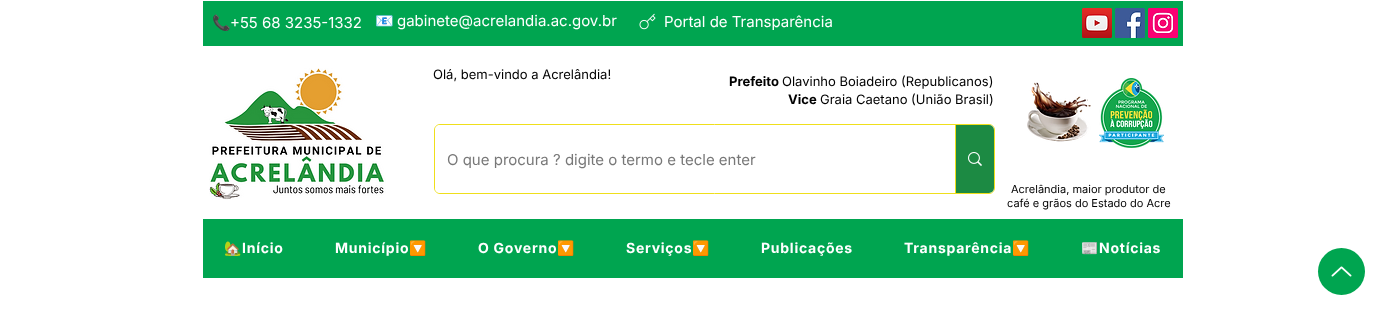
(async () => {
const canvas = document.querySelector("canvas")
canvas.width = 1385
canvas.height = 315
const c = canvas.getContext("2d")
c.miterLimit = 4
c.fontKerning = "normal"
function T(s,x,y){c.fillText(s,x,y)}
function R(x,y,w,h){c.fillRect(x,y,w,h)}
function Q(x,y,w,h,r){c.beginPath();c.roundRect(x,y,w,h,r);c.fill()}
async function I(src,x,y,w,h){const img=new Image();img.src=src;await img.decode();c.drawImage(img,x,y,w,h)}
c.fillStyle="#fff"
R(0,0,1385,315)
c.fillStyle="#00a550"
R(203,1,980,45)
c.font="15px Noto Color Emoji"
c.fillStyle="#fff"
T("📞",212,28)
c.font="15px Inter"
T("+55 68 3235-1332",230,28)
c.font="15px Noto Color Emoji"
T("📧",375,26)
c.font="15px Inter"
T("gabinete@acrelandia.ac.gov.br",397,26)
await I("1.png",639,13,17,17)
T("Portal de Transparência",664,27)
await I("2.png",1082,8,30,30)
await I("3.png",1115,8,30,30)
await I("4.png",1148,8,30,30)
await I("5.png",209,68,177,132)
c.font="13px Inter"
c.fillStyle="#000"
T("Olá, bem-vindo a Acrelândia!",433,79)
c.font="bold 13px Inter"
T("Prefeito",729,86)
c.font="13px Inter"
T("Olavinho Boiadeiro (Republicanos)",782,86)
c.font="bold 13px Inter"
T("Vice",788,104)
c.font="13px Inter"
T("Graia Caetano (União Brasil)",820,104)
await I("6.png",1027,82,64,60)
await I("7.png",1099,78,65,70)
c.beginPath()
c.roundRect(434.5,124.5,560,69,5.5)
c.strokeStyle="#efdf1b"
c.stroke()
c.fillStyle="#fff"
Q(435,125,559,68,5)
c.font="15px Inter"
c.fillStyle="#787878"
T("O que procura ? digite o termo e tecle enter",447,165)
c.fillStyle="#1c8a43"
c.beginPath()
c.roundRect(955,125,39,68,[0,5,5,0])
c.fill()
c.fillStyle="#efdf1b"
R(955,125,1,68)
await I("8.png",968,152,14,14)
c.font="11px Inter"
c.fillStyle="#000"
T("Acrelândia, maior produtor de",1011,193)
T("café e grãos do Estado do Acre",1007,207)
c.fillStyle="#00a550"
R(203,219,980,59)
c.letterSpacing="0.75px"
c.font="bold 14px Noto Color Emoji"
c.fillStyle="#fff"
T("🏡",224,253)
c.font="bold 14px Inter"
T("Início",242,253)
T("Município",335,253)
c.font="bold 14px Noto Color Emoji"
T("🔽",409,253)
c.font="bold 14px Inter"
T("O Governo",478,253)
c.font="bold 14px Noto Color Emoji"
T("🔽",557,253)
c.font="bold 14px Inter"
T("Serviços",626,253)
c.font="bold 14px Noto Color Emoji"
T("🔽",692,253)
c.font="bold 14px Inter"
T("Publicações",761,253)
T("Transparência",904,253)
c.font="bold 14px Noto Color Emoji"
T("🔽",1012,253)
T("📰",1081,253)
c.font="bold 14px Inter"
T("Notícias",1099,253)
c.fillStyle="#00a550"
c.beginPath()
c.arc(1341.5,271.5,23.5,0,7)
c.fill()
await I("9.png",1331,266,21,11)
})()
